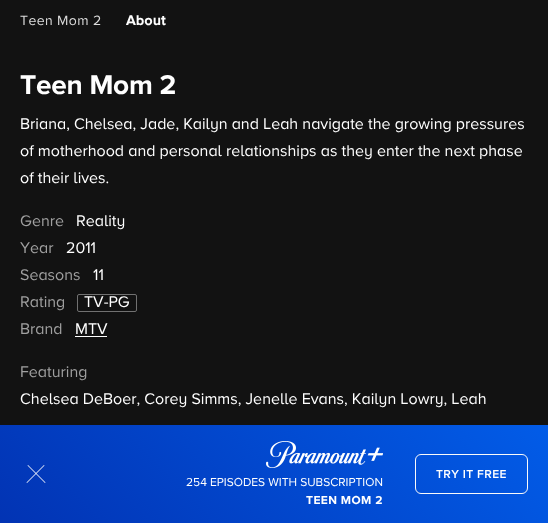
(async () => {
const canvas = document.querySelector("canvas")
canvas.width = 548
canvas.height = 523
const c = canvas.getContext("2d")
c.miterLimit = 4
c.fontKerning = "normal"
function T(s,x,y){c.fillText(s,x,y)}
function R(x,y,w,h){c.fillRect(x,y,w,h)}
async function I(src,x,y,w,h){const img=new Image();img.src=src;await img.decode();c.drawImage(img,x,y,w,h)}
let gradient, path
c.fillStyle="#121212"
R(0,0,548,523)
c.letterSpacing="0.4px"
c.font="14px 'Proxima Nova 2'"
c.fillStyle="#dbdbdb"
T("Teen Mom 2",20,25)
c.font="bold 14px Proxima Nova"
c.fillStyle="#fff"
T("About",126,25)
c.letterSpacing="-0.25px"
c.font="28px Proxima Nova"
T("Teen Mom 2",20,94)
c.letterSpacing="0px"
c.font="16px 'Proxima Nova 2'"
T("Briana, Chelsea, Jade, Kailyn and Leah navigate the growing pressures",20,129)
T("of motherhood and personal relationships as they enter the next phase",20,156)
T("of their lives.",20,183)
c.fillStyle="#a0a0a0"
T("Genre",20,226)
c.fillStyle="#fff"
T("Reality",76,226)
c.fillStyle="#a0a0a0"
T("Year",20,253)
c.fillStyle="#fff"
T("2011",66,253)
c.fillStyle="#a0a0a0"
T("Seasons",20,280)
c.fillStyle="#fff"
T("11",93,280)
c.fillStyle="#a0a0a0"
T("Rating",20,307)
c.beginPath()
c.roundRect(77.5,294.5,59,17,1.5)
c.strokeStyle="#717171"
c.stroke()
c.fillStyle="#fff"
T("TV-PG",84,307)
c.fillStyle="#a0a0a0"
T("Brand",20,334)
c.fillStyle="#fff"
T("MTV",75,334)
R(75,336,32,1)
c.fillStyle="#a0a0a0"
T("Featuring",20,377)
c.fillStyle="#fff"
T("Chelsea DeBoer, Corey Simms, Jenelle Evans, Kailyn Lowry, Leah",20,404)
gradient = c.createLinearGradient(113,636,436,313)
gradient.addColorStop(0,"#0037c5e6")
gradient.addColorStop(1,"#0064ffe6")
c.fillStyle = gradient
R(0,425,548,98)
c.fillStyle="#fff"
path = new Path2D("M44 465l.5 .5l-17.5 17.5l-.5-.5z")
c.fill(path)
path = new Path2D("M27.5 465.5l.5-.5l17.5 17.5l-.5 .5z")
c.fill(path)
c.beginPath()
c.roundRect(415.5,454.5,112,39,5.5)
c.strokeStyle="#fafafa"
c.stroke()
c.letterSpacing="0.4px"
c.font="12px 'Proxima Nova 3'"
T("TRY IT FREE",436,478)
await I("1.png",266,441,117,27)
c.letterSpacing="0px"
c.font="12px 'Proxima Nova 2'"
T("254 EPISODES WITH SUBSCRIPTION",186,486)
c.letterSpacing="0.4px"
c.font="12px Proxima Nova"
T("TEEN MOM 2",306,504)
})()
